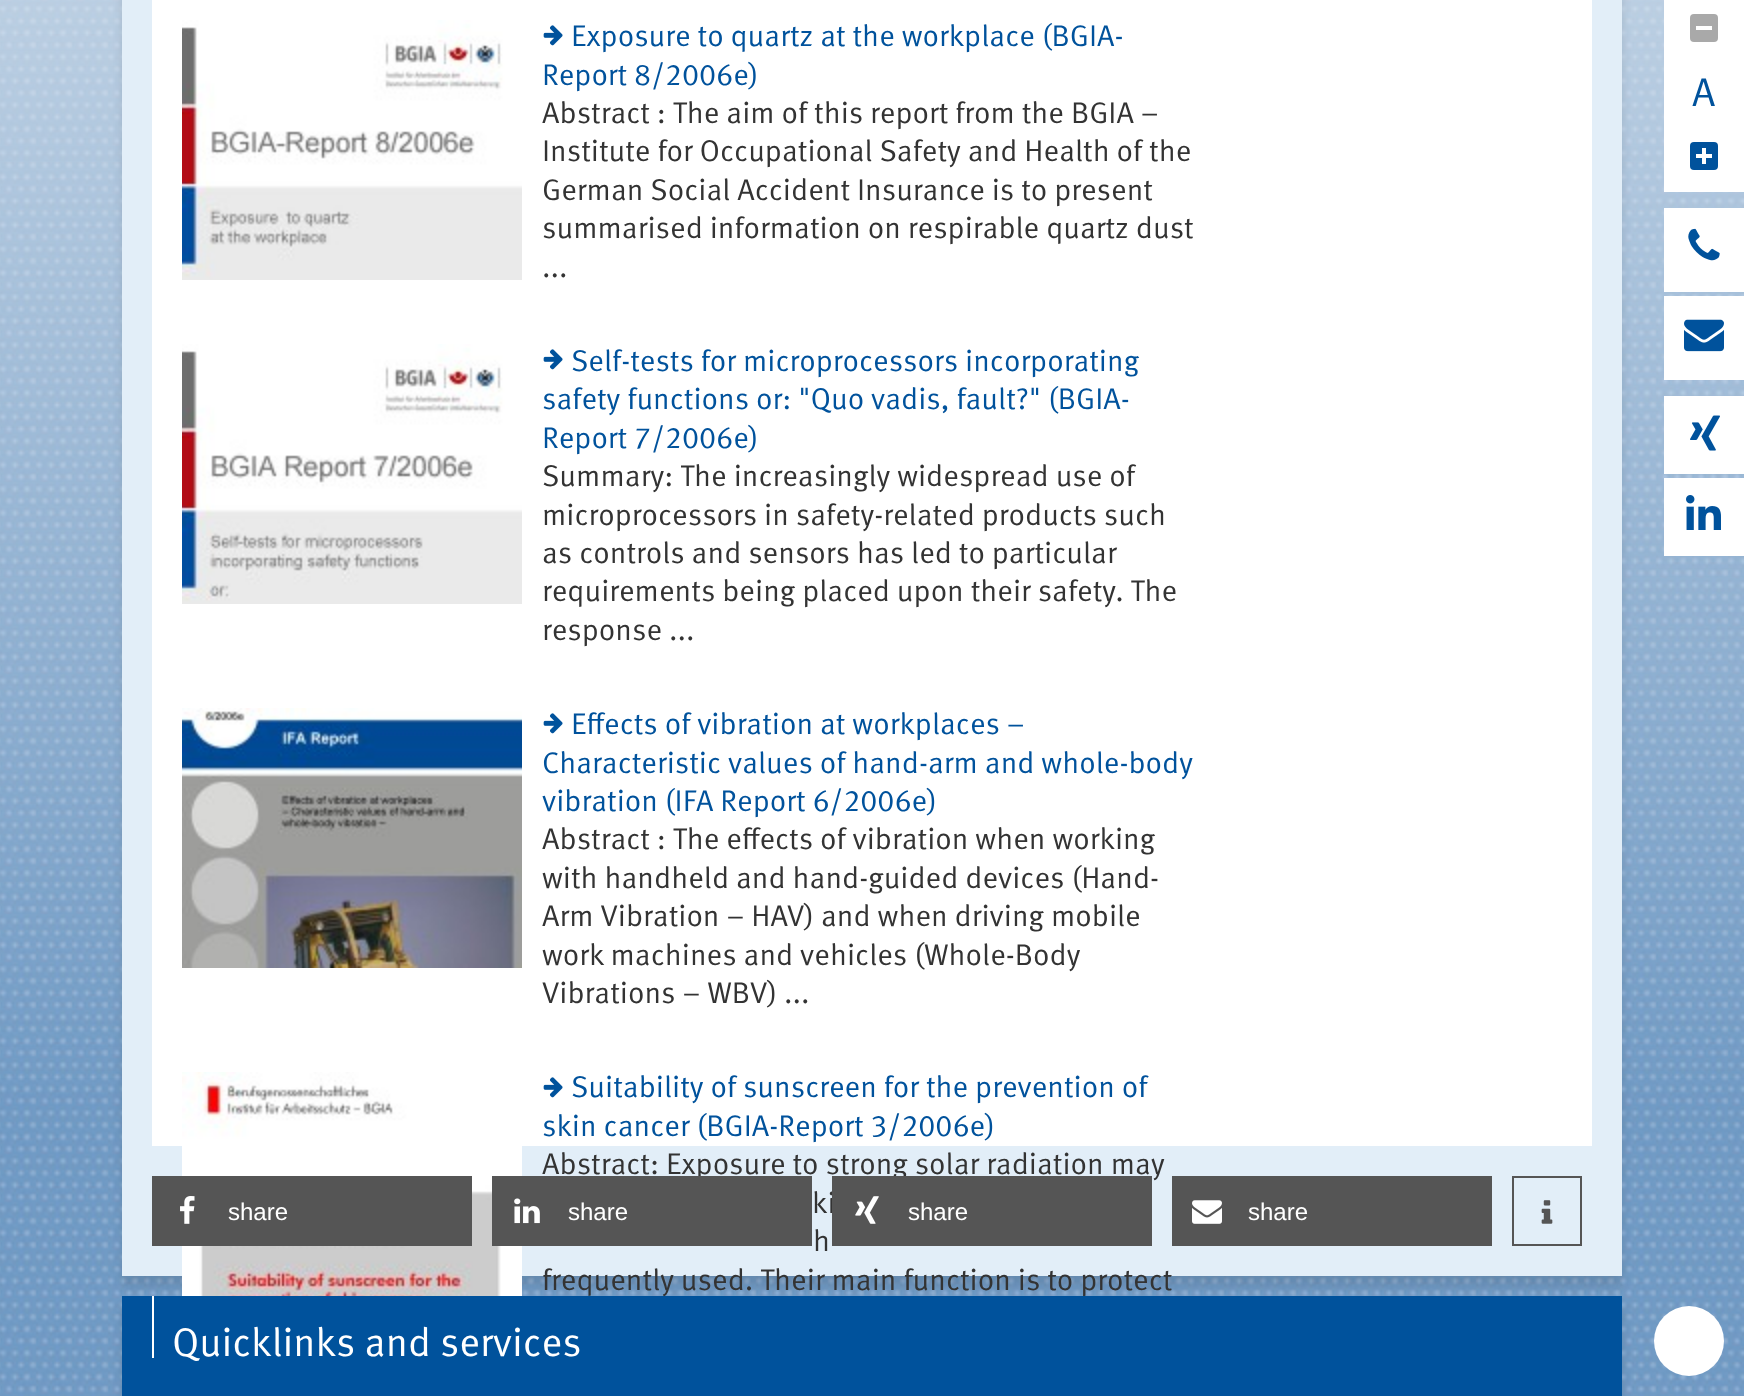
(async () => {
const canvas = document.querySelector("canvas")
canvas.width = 1744
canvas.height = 1396
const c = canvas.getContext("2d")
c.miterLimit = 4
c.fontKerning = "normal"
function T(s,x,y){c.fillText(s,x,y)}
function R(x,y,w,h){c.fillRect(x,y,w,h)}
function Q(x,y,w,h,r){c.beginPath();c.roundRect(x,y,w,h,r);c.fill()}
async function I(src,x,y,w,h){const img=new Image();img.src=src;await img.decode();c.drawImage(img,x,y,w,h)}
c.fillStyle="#fff"
R(0,0,1744,1396)
await I("1.png",0,0,1744,1396)
c.fillStyle="#0000001a"
c.filter="blur(5px)"
c.beginPath()
c.rect(122,-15,1500,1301)
c.fill()
c.filter="none"
c.fillStyle="#e2eef8"
R(122,0,1500,1276)
c.fillStyle="#fff"
R(152,0,1440,1146)
await I("2.png",182,20,340,260)
await I("3.png",543,25,20,21)
c.font="30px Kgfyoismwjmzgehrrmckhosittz"
c.fillStyle="#00529c"
T("Exposure to quartz at the workplace (BGIA-",571,46)
T("Report 8/2006e)",542,85)
c.fillStyle="#333"
T("Abstract : The aim of this report from the BGIA –",542,123)
T("Institute for Occupational Safety and Health of the",542,161)
T("German Social Accident Insurance is to present",542,200)
T("summarised information on respirable quartz dust",542,238)
T("...",542,277)
await I("4.png",182,344,340,260)
await I("3.png",543,349,20,21)
c.fillStyle="#00529c"
T("Self-tests for microprocessors incorporating",571,371)
T("safety functions or: \"Quo vadis, fault?\" (BGIA-",542,409)
T("Report 7/2006e)",542,448)
c.fillStyle="#333"
T("Summary: The increasingly widespread use of",542,486)
T("microprocessors in safety-related products such",542,525)
T("as controls and sensors has led to particular",542,563)
T("requirements being placed upon their safety. The",542,601)
T("response ...",542,640)
await I("5.png",182,708,340,260)
await I("3.png",543,713,20,21)
c.fillStyle="#00529c"
T("Effects of vibration at workplaces –",571,734)
T("Characteristic values of hand-arm and whole-body",542,773)
T("vibration (IFA Report 6/2006e)",542,811)
c.fillStyle="#333"
T("Abstract : The effects of vibration when working",542,849)
T("with handheld and hand-guided devices (Hand-",542,888)
T("Arm Vibration – HAV) and when driving mobile",542,926)
T("work machines and vehicles (Whole-Body",542,965)
T("Vibrations – WBV) ...",542,1003)
await I("6.png",182,1072,340,224)
await I("3.png",543,1077,20,21)
c.fillStyle="#00529c"
T("Suitability of sunscreen for the prevention of",571,1097)
T("skin cancer (BGIA-Report 3/2006e)",542,1136)
c.fillStyle="#333"
T("Abstract: Exposure to strong solar radiation may",542,1174)
T("ki",812,1213)
T("h",813,1251)
T("frequently used. Their main function is to protect",542,1290)
c.fillStyle="#555"
R(152,1176,320,70)
await I("7.png",180,1196,15,28)
c.font="24px Liberation Sans"
c.fillStyle="#fff"
T("share",228,1220)
c.fillStyle="#555"
R(492,1176,320,70)
await I("8.png",514,1198,26,26)
c.fillStyle="#fff"
T("share",568,1220)
c.fillStyle="#555"
R(832,1176,320,70)
await I("9.png",855,1196,24,28)
c.fillStyle="#fff"
T("share",908,1220)
c.fillStyle="#555"
R(1172,1176,320,70)
await I("10.png",1192,1200,30,24)
c.fillStyle="#fff"
T("share",1248,1220)
c.strokeStyle="#555"
c.lineWidth=2
c.strokeRect(1513,1177,68,68)
await I("11.png",1541,1200,12,24)
R(1664,0,80,192)
c.fillStyle="#a9a9a9"
Q(1690,14,28,28,4)
c.fillStyle="#fff"
R(1696,26,16,4)
c.font="40px Kgfyoismwjmzgehrrmckhosittz"
c.fillStyle="#00529c"
T("A",1692,106)
Q(1690,142,28,28,4)
c.fillStyle="#fff"
R(1696,154,16,4)
R(1702,148,4,16)
R(1664,208,80,84)
await I("12.png",1688,228,32,33)
R(1664,296,80,84)
await I("13.png",1684,319,40,33)
R(1664,396,80,78)
await I("14.png",1690,415,30,36)
R(1664,478,80,78)
await I("15.png",1686,495,35,35)
c.fillStyle="#0000001a"
c.filter="blur(5px)"
c.beginPath()
c.rect(122,1306,1500,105)
c.fill()
c.filter="none"
c.fillStyle="#00529c"
R(122,1296,1500,100)
c.fillStyle="#fff"
R(152,1296,2,62)
T("Quicklinks and services",172,1356)
c.beginPath()
c.arc(1689,1341,35,0,7)
c.fill()
})()
